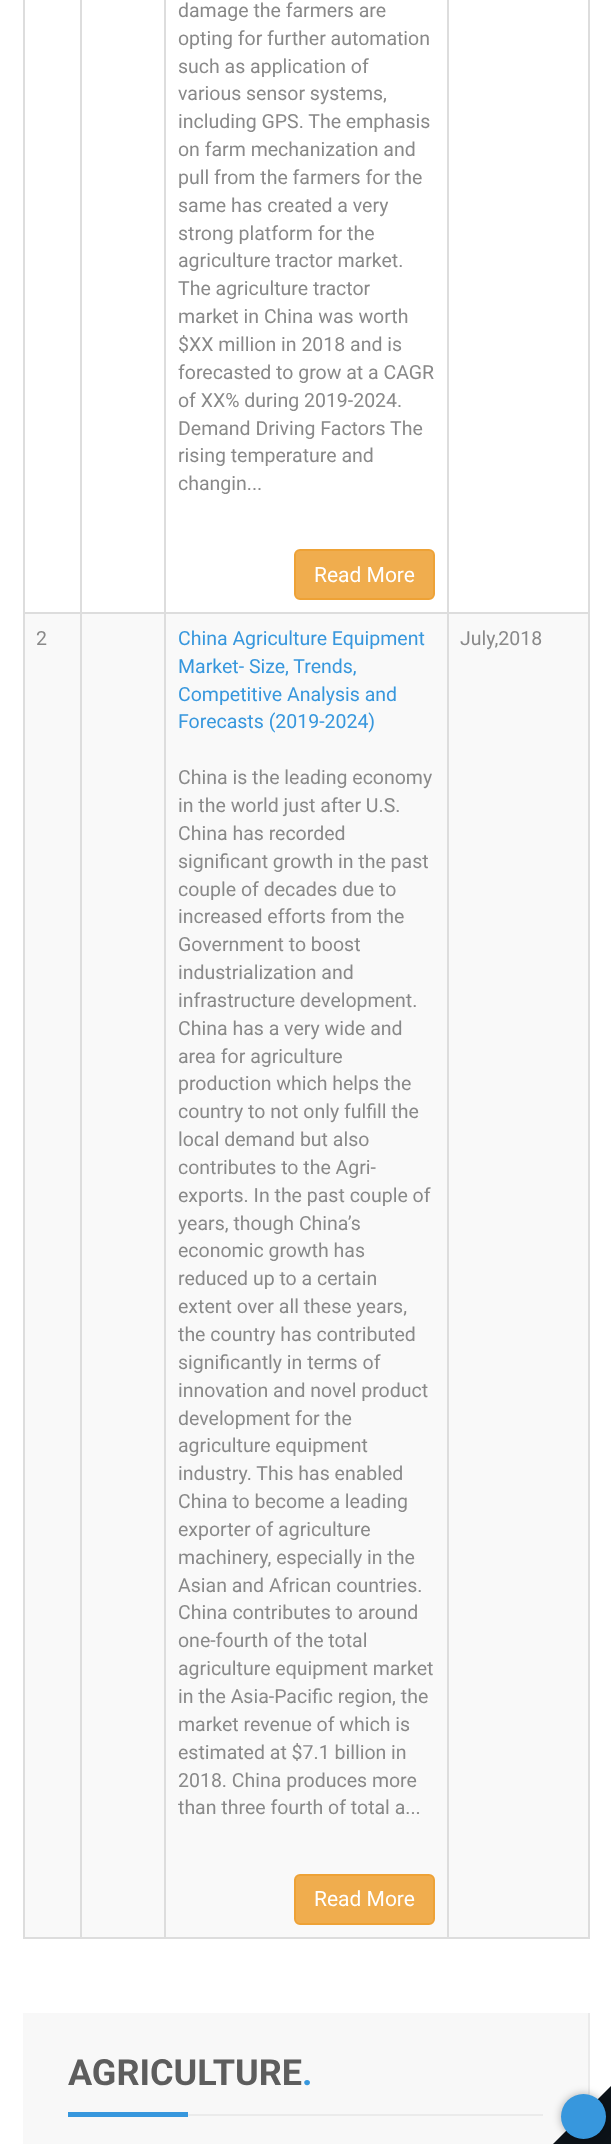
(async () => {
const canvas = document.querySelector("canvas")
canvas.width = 611
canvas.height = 2144
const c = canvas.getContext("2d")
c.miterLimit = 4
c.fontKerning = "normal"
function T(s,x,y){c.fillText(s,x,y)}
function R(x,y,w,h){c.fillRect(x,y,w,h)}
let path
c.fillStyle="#fff"
R(0,0,611,2144)
c.fillStyle="#ddd"
R(588,0,2,1938)
R(23,1937,567,2)
R(23,0,2,1938)
R(447,612,143,2)
c.fillStyle="#f9f9f9"
R(25,614,563,1323)
c.fillStyle="#ddd"
R(447,612,2,1326)
R(164,612,285,2)
R(164,612,2,1326)
R(80,612,85,2)
R(80,612,2,1326)
R(23,612,58,2)
R(80,0,2,614)
R(164,0,2,614)
c.font="19.5px Roboto"
c.fillStyle="#898989"
T("damage the farmers are",178,17)
T("opting for further automation",178,45)
T("such as application of",178,73)
T("various sensor systems,",178,100)
T("including GPS. The emphasis",178,128)
T("on farm mechanization and",178,156)
T("pull from the farmers for the",178,184)
T("same has created a very",178,212)
T("strong platform for the",178,240)
T("agriculture tractor market.",178,267)
T("The agriculture tractor",178,295)
T("market in China was worth",178,323)
T("$XX million in 2018 and is",178,351)
T("forecasted to grow at a CAGR",178,379)
T("of XX% during 2019-2024.",178,407)
T("Demand Driving Factors",178,435)
T("The",390,435)
T("rising temperature and",178,462)
T("changin...",178,490)
c.fillStyle="#f0ad4e"
c.beginPath()
c.roundRect(295,550,139,49,5)
c.fill()
c.strokeStyle="#eea236"
c.lineWidth=2
c.stroke()
c.font="21px Roboto"
c.fillStyle="#fff"
T("Read More",314,582)
c.fillStyle="#ddd"
R(447,0,2,614)
c.font="19.5px Roboto"
c.fillStyle="#898989"
T("2",36,645)
c.fillStyle="#3797dd"
T("China Agriculture Equipment",178,645)
T("Market- Size, Trends,",178,673)
T("Competitive Analysis and",178,701)
T("Forecasts (2019-2024)",178,728)
c.fillStyle="#898989"
T("China is the leading economy",178,784)
T("in the world just after U.S.",178,812)
T("China has recorded",178,840)
T("significant growth in the past",178,868)
T("couple of decades due to",178,896)
T("increased efforts from the",178,923)
T("Government to boost",178,951)
T("industrialization and",178,979)
T("infrastructure development.",178,1007)
T("China has a very wide and",178,1035)
T("area for agriculture",178,1063)
T("production which helps the",178,1090)
T("country to not only fulfill the",178,1118)
T("local demand but also",178,1146)
T("contributes to the Agri-",178,1174)
T("exports. In the past couple of",178,1202)
T("years, though China’s",178,1230)
T("economic growth has",178,1257)
T("reduced up to a certain",178,1285)
T("extent over all these years,",178,1313)
T("the country has contributed",178,1341)
T("significantly in terms of",178,1369)
T("innovation and novel product",178,1397)
T("development for the",178,1425)
T("agriculture equipment",178,1452)
T("industry. This has enabled",178,1480)
T("China to become a leading",178,1508)
T("exporter of agriculture",178,1536)
T("machinery, especially in the",178,1564)
T("Asian and African countries.",178,1592)
T("China contributes to around",178,1619)
T("one-fourth of the total",178,1647)
T("agriculture equipment market",178,1675)
T("in the Asia-Pacific region, the",178,1703)
T("market revenue of which is",178,1731)
T("estimated at $7.1 billion in",178,1759)
T("2018. China produces more",178,1787)
T("than three fourth of total a...",178,1814)
c.fillStyle="#f0ad4e"
c.beginPath()
c.roundRect(295,1875,139,49,5)
c.fill()
c.stroke()
c.font="21px Roboto"
c.fillStyle="#fff"
T("Read More",314,1906)
c.font="19.5px Roboto"
c.fillStyle="#898989"
T("July,2018",460,645)
c.fillStyle="#f8f8f8"
R(23,2013,565,131)
c.fillStyle="#ebebeb"
R(588,2013,2,82)
c.font="bold 36px Roboto"
c.fillStyle="#5d5d5d"
T("AGRICULTURE",68,2085)
c.fillStyle="#3797dd"
T(".",302,2085)
c.fillStyle="#ebebeb"
R(188,2114,355,2)
c.fillStyle="#3797dd"
R(68,2112,120,5)
c.fillStyle="#0c1218"
path = new Path2D("M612 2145h-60l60-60z")
c.fill(path)
c.fillStyle="#0000004d"
c.filter="blur(4px)"
c.beginPath()
c.roundRect(561,2094,45,45,22.5)
c.fill()
c.filter="none"
c.fillStyle="#3797dd"
c.beginPath()
c.arc(583.5,2116.5,22.5,0,7)
c.fill()
})()
